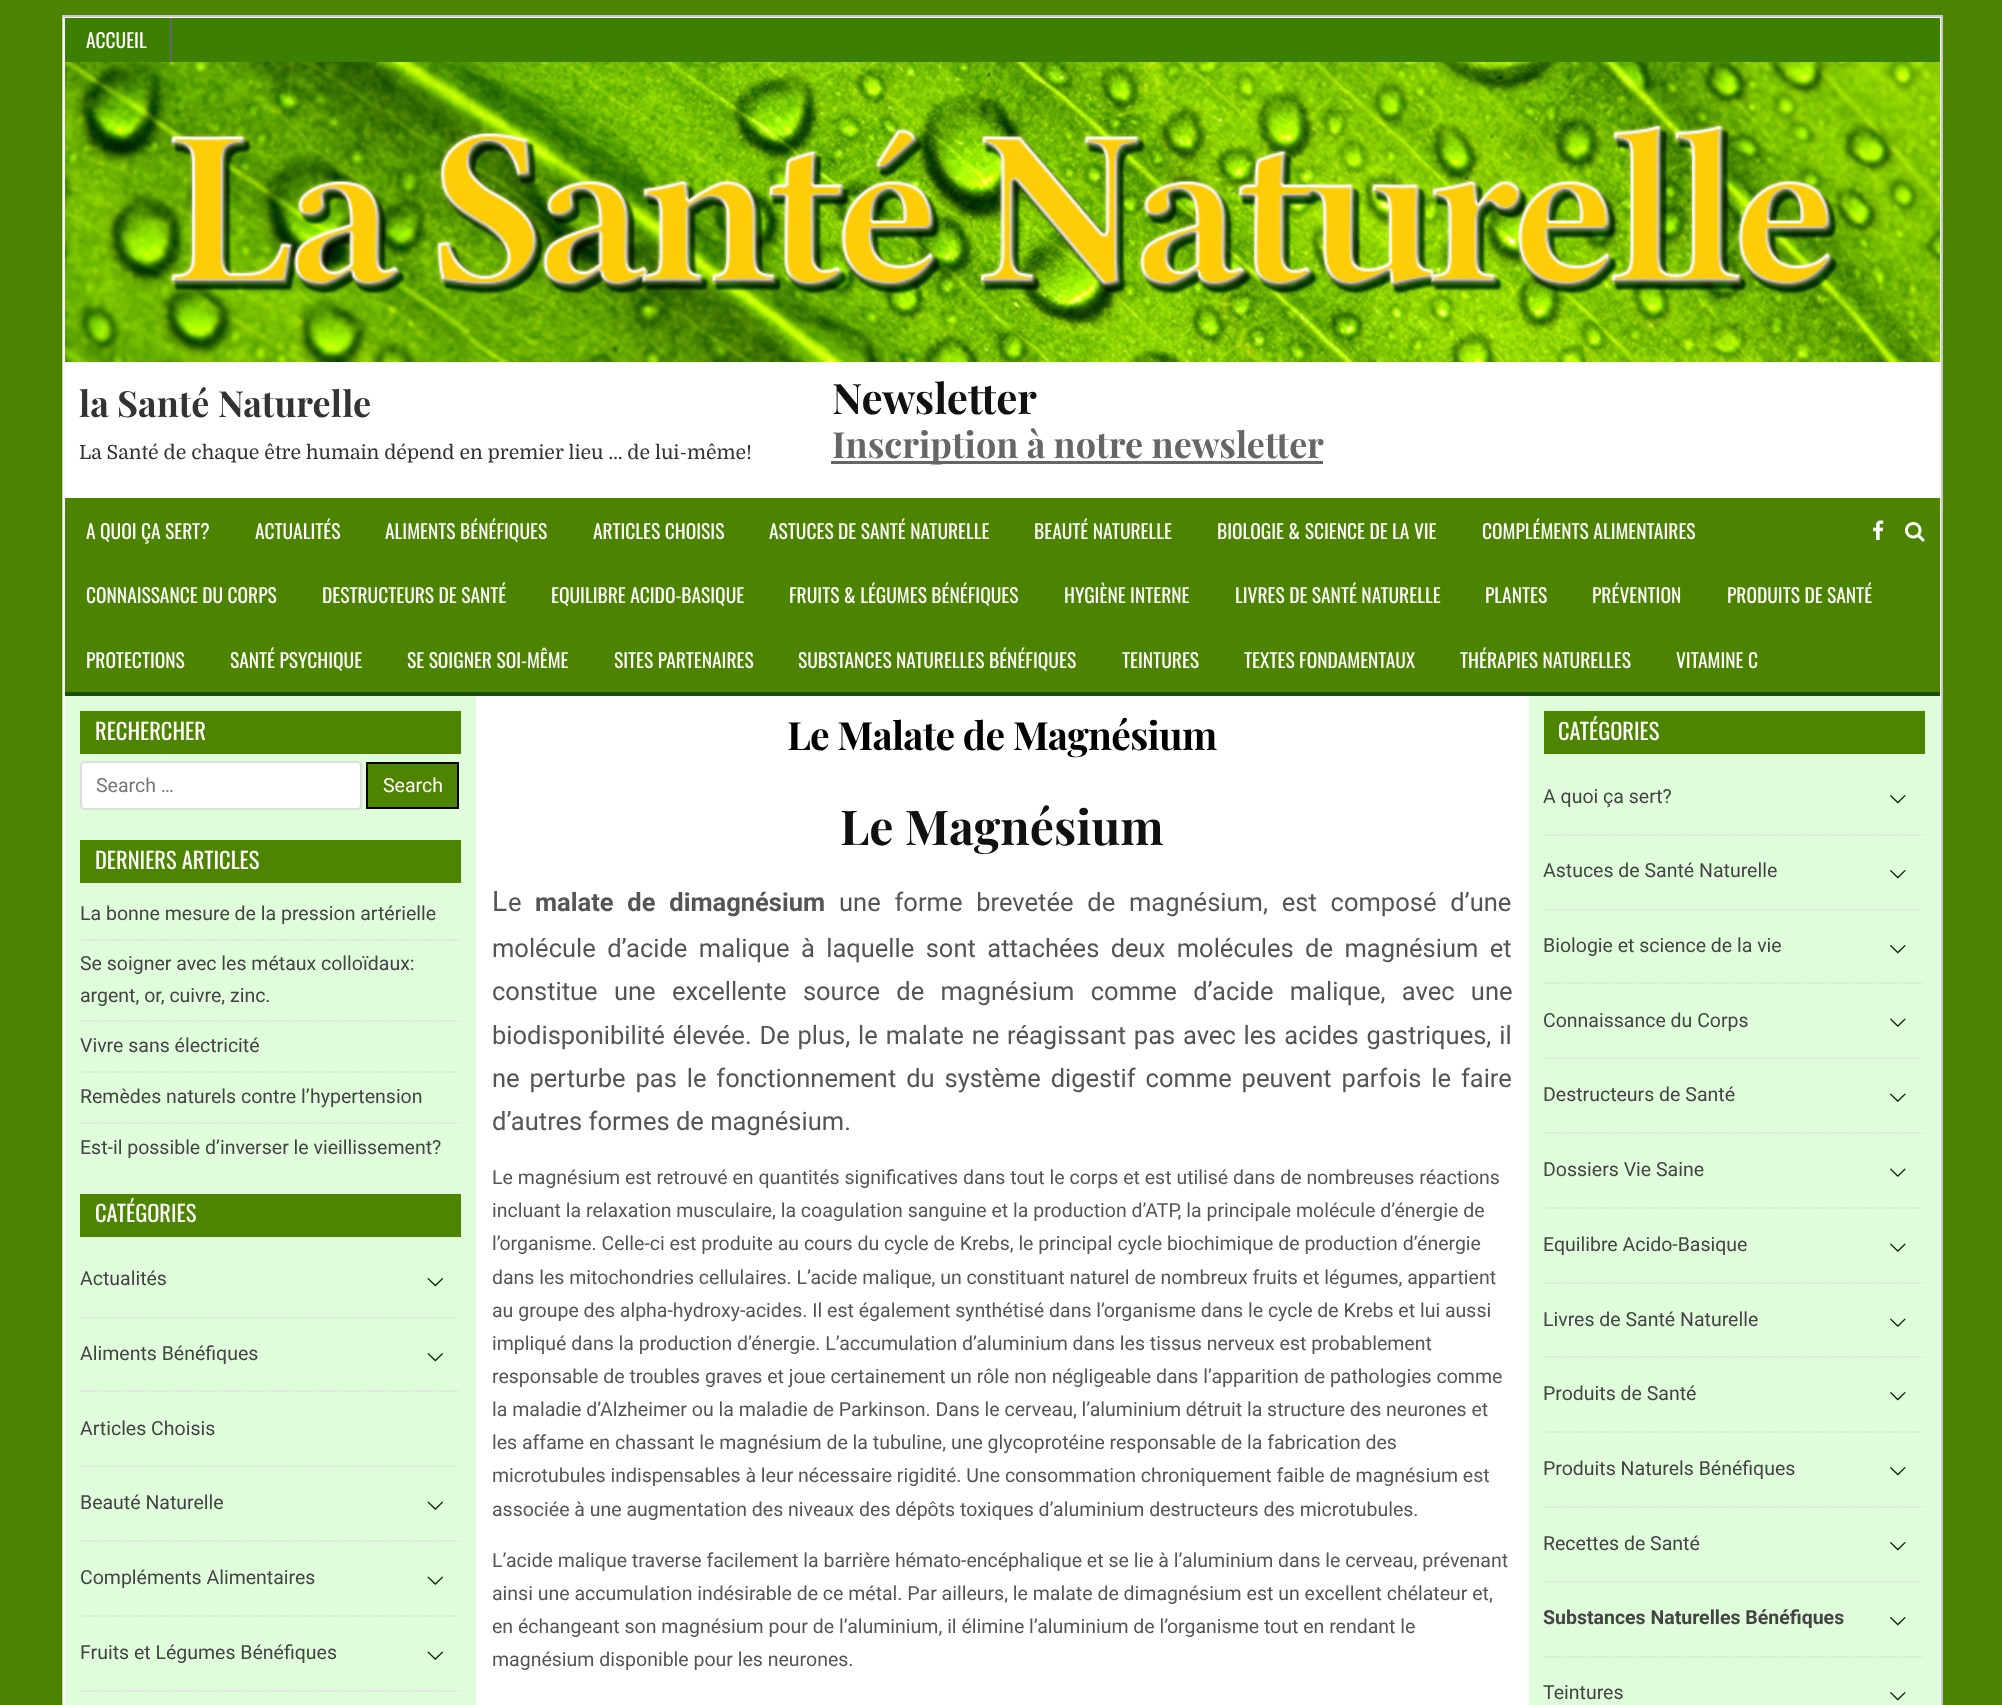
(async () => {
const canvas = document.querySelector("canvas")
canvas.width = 2002
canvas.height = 1705
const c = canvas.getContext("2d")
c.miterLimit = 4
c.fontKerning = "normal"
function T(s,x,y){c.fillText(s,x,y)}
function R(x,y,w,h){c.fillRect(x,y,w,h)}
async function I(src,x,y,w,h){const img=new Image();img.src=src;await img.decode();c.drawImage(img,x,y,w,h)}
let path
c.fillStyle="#4c8300"
R(0,0,2002,1705)
c.strokeStyle="#c8c8c8"
c.lineWidth=2
c.strokeRect(63,16,1879,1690)
c.strokeStyle="#f9f9f9"
c.strokeRect(64,18,1876,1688)
c.fillStyle="#3d7f01"
R(65,18,1875,44)
c.fillStyle="#666"
R(170,18,2,44)
c.font="19.5px Oswald"
c.fillStyle="#fff"
T("ACCUEIL",86,48)
R(65,362,1875,136)
await I("1.png",65,62,1875,300)
c.font="bold 36px Playfair Display"
c.fillStyle="#333"
T("la Santé Naturelle",79,417)
c.font="19.5px Domine"
T("La Santé de chaque être humain dépend en premier lieu … de lui-même!",79,459)
c.font="bold 42px Playfair Display"
c.fillStyle="#111"
T("Newsletter",832,414)
c.fillStyle="#666"
R(831,461,492,3)
c.font="bold 36px Playfair Display"
T("Inscription à notre newsletter",832,458)
c.fillStyle="#4d8500"
R(1939,498,1,194)
c.fillStyle="#174f06"
R(65,692,1875,4)
c.font="19.5px Oswald"
c.fillStyle="#fff"
T("A QUOI ÇA SERT?",86,539)
T("ACTUALITÉS",255,539)
T("ALIMENTS BÉNÉFIQUES",385,539)
T("ARTICLES CHOISIS",593,539)
T("ASTUCES DE SANTÉ NATURELLE",769,539)
T("BEAUTÉ NATURELLE",1034,539)
T("BIOLOGIE & SCIENCE DE LA VIE",1217,539)
T("COMPLÉMENTS ALIMENTAIRES",1482,539)
T("CONNAISSANCE DU CORPS",86,603)
T("DESTRUCTEURS DE SANTÉ",322,603)
T("EQUILIBRE ACIDO-BASIQUE",551,603)
T("FRUITS & LÉGUMES BÉNÉFIQUES",789,603)
T("HYGIÈNE INTERNE",1064,603)
T("LIVRES DE SANTÉ NATURELLE",1235,603)
T("PLANTES",1485,603)
T("PRÉVENTION",1592,603)
T("PRODUITS DE SANTÉ",1727,603)
T("PROTECTIONS",86,668)
T("SANTÉ PSYCHIQUE",230,668)
T("SE SOIGNER SOI-MÊME",407,668)
T("SITES PARTENAIRES",614,668)
T("SUBSTANCES NATURELLES BÉNÉFIQUES",798,668)
T("TEINTURES",1122,668)
T("TEXTES FONDAMENTAUX",1244,668)
T("THÉRAPIES NATURELLES",1460,668)
T("VITAMINE C",1676,668)
await I("2.png",1873,520,11,20)
await I("3.png",1905,522,20,20)
R(476,696,1053,1009)
c.fillStyle="#dffddb"
R(65,696,411,1009)
c.fillStyle="#4d8500"
R(80,711,381,43)
c.font="22.5px Oswald"
c.fillStyle="#fff"
T("RECHERCHER",95,740)
c.beginPath()
c.roundRect(81,762,280,47,4)
c.fill()
c.strokeStyle="#ddd"
c.stroke()
c.font="19.5px Roboto"
c.fillStyle="#757575"
T("Search …",96,792)
c.fillStyle="#4d8400"
c.beginPath()
c.rect(367,763,91,45)
c.fill()
c.strokeStyle="#000"
c.stroke()
c.fillStyle="#fff"
T("Search",383,792)
c.fillStyle="#4d8500"
R(80,840,381,43)
c.font="22.5px Oswald"
c.fillStyle="#fff"
T("DERNIERS ARTICLES",95,869)
path = new Path2D("M79.5 940h381")
c.strokeStyle="#d6d6d6"
c.lineWidth=1.5
c.setLineDash([1.5,1.5])
c.stroke(path)
c.font="19.5px Roboto"
c.fillStyle="#444"
T("La bonne mesure de la pression artérielle",80,920)
path = new Path2D("M79.5 1021h381")
c.stroke(path)
T("Se soigner avec les métaux colloïdaux:",80,970)
T("argent, or, cuivre, zinc.",80,1002)
path = new Path2D("M79.5 1072h381")
c.stroke(path)
T("Vivre sans électricité",80,1052)
path = new Path2D("M79.5 1123h381")
c.stroke(path)
T("Remèdes naturels contre l’hypertension",80,1103)
T("Est-il possible d’inverser le vieillissement?",80,1154)
c.fillStyle="#4d8500"
R(80,1194,381,43)
c.font="22.5px Oswald"
c.fillStyle="#fff"
T("CATÉGORIES",95,1222)
path = new Path2D("M79.5 1318h381")
c.stroke(path)
c.font="19.5px Roboto"
c.fillStyle="#444"
T("Actualités",80,1285)
await I("4.png",427,1278,16,9)
path = new Path2D("M79.5 1391h381")
c.stroke(path)
T("Aliments Bénéfiques",80,1360)
await I("4.png",427,1353,16,9)
path = new Path2D("M79.5 1466h381")
c.stroke(path)
T("Articles Choisis",80,1435)
path = new Path2D("M79.5 1541h381")
c.stroke(path)
T("Beauté Naturelle",80,1509)
await I("5.png",427,1501,16,9)
path = new Path2D("M79.5 1616h381")
c.stroke(path)
T("Compléments Alimentaires",80,1584)
await I("5.png",427,1576,16,9)
path = new Path2D("M79.5 1691h381")
c.stroke(path)
T("Fruits et Légumes Bénéfiques",80,1659)
await I("5.png",427,1651,16,9)
c.letterSpacing="-0.75px"
c.font="bold 39px Playfair Display"
c.fillStyle="#000"
T("Le Malate de Magnésium",787,750)
c.letterSpacing="0px"
c.font="bold 48px Playfair Display"
c.fillStyle="#111"
T("Le Magnésium",840,845)
c.font="28px Roboto"
c.fillStyle="#555"
T("L",492,911)
c.font="25.5px Roboto"
T("e",508,911)
c.wordSpacing="7.5px"
c.font="bold 25.5px Roboto"
T("malate de dimagnésium",535,911)
c.font="25.5px Roboto"
T("une forme brevetée de magnésium, est composé d’une",839,911)
c.wordSpacing="5.1px"
T("molécule d’acide malique à laquelle sont attachées deux molécules de magnésium et",492,957)
c.wordSpacing="10px"
T("constitue une excellente source de magnésium comme d’acide malique, avec une",492,1000)
c.wordSpacing="1.5px"
T("biodisponibilité élevée. De plus, le malate ne réagissant pas avec les acides gastriques, il",492,1044)
c.wordSpacing="3.6px"
T("ne perturbe pas le fonctionnement du système digestif comme peuvent parfois le faire",492,1087)
c.wordSpacing="0px"
T("d’autres formes de magnésium.",492,1130)
c.font="19.5px Roboto"
T("Le magnésium est retrouvé en quantités significatives dans tout le corps et est utilisé dans de nombreuses réactions",492,1184)
T("incluant la relaxation musculaire, la coagulation sanguine et la production d’ATP, la principale molécule d’énergie de",492,1217)
T("l’organisme. Celle-ci est produite au cours du cycle de Krebs, le principal cycle biochimique de production d’énergie",492,1250)
T("dans les mitochondries cellulaires. L’acide malique, un constituant naturel de nombreux fruits et légumes, appartient",492,1284)
T("au groupe des alpha-hydroxy-acides. Il est également synthétisé dans l’organisme dans le cycle de Krebs et lui aussi",492,1317)
T("impliqué dans la production d’énergie. L’accumulation d’aluminium dans les tissus nerveux est probablement",492,1350)
T("responsable de troubles graves et joue certainement un rôle non négligeable dans l’apparition de pathologies comme",492,1383)
T("la maladie d’Alzheimer ou la maladie de Parkinson. Dans le cerveau, l’aluminium détruit la structure des neurones et",492,1416)
T("les affame en chassant le magnésium de la tubuline, une glycoprotéine responsable de la fabrication des",492,1449)
T("microtubules indispensables à leur nécessaire rigidité. Une consommation chroniquement faible de magnésium est",492,1482)
T("associée à une augmentation des niveaux des dépôts toxiques d’aluminium destructeurs des microtubules.",492,1516)
T("L’acide malique traverse facilement la barrière hémato-encéphalique et se lie à l’aluminium dans le cerveau, prévenant",492,1567)
T("ainsi une accumulation indésirable de ce métal. Par ailleurs, le malate de dimagnésium est un excellent chélateur et,",492,1600)
T("en échangeant son magnésium pour de l’aluminium, il élimine l’aluminium de l’organisme tout en rendant le",492,1633)
T("magnésium disponible pour les neurones.",492,1666)
c.fillStyle="#dffddb"
R(1529,696,411,1009)
c.fillStyle="#4d8500"
R(1544,711,381,43)
c.font="22.5px Oswald"
c.fillStyle="#fff"
T("CATÉGORIES",1558,740)
path = new Path2D("M1543.5 835h381")
c.stroke(path)
c.font="19.5px Roboto"
c.fillStyle="#444"
T("A quoi ça sert?",1543,803)
await I("6.png",1890,795,16,9)
path = new Path2D("M1543.5 910h381")
c.stroke(path)
T("Astuces de Santé Naturelle",1543,877)
await I("6.png",1890,870,16,9)
path = new Path2D("M1543.5 983h381")
c.stroke(path)
T("Biologie et science de la vie",1543,952)
await I("6.png",1890,945,16,9)
path = new Path2D("M1543.5 1058h381")
c.stroke(path)
T("Connaissance du Corps",1543,1027)
await I("7.png",1890,1018,16,9)
path = new Path2D("M1543.5 1133h381")
c.stroke(path)
T("Destructeurs de Santé",1543,1101)
await I("7.png",1890,1093,16,9)
path = new Path2D("M1543.5 1208h381")
c.stroke(path)
T("Dossiers Vie Saine",1543,1176)
await I("7.png",1890,1168,16,9)
path = new Path2D("M1543.5 1283h381")
c.stroke(path)
T("Equilibre Acido-Basique",1543,1251)
await I("7.png",1890,1243,16,9)
path = new Path2D("M1543.5 1357h381")
c.stroke(path)
T("Livres de Santé Naturelle",1543,1326)
await I("7.png",1890,1318,16,9)
path = new Path2D("M1543.5 1432h381")
c.stroke(path)
T("Produits de Santé",1543,1400)
await I("6.png",1890,1392,16,9)
path = new Path2D("M1543.5 1507h381")
c.stroke(path)
T("Produits Naturels Bénéfiques",1543,1475)
await I("6.png",1890,1467,16,9)
path = new Path2D("M1543.5 1582h381")
c.stroke(path)
T("Recettes de Santé",1543,1550)
await I("6.png",1890,1542,16,9)
path = new Path2D("M1543.5 1657h381")
c.stroke(path)
c.font="bold 19.5px Roboto"
T("Substances Naturelles Bénéfiques",1543,1624)
await I("6.png",1890,1617,16,9)
c.font="19.5px Roboto"
T("Teintures",1543,1699)
await I("6.png",1890,1692,16,9)
})()
